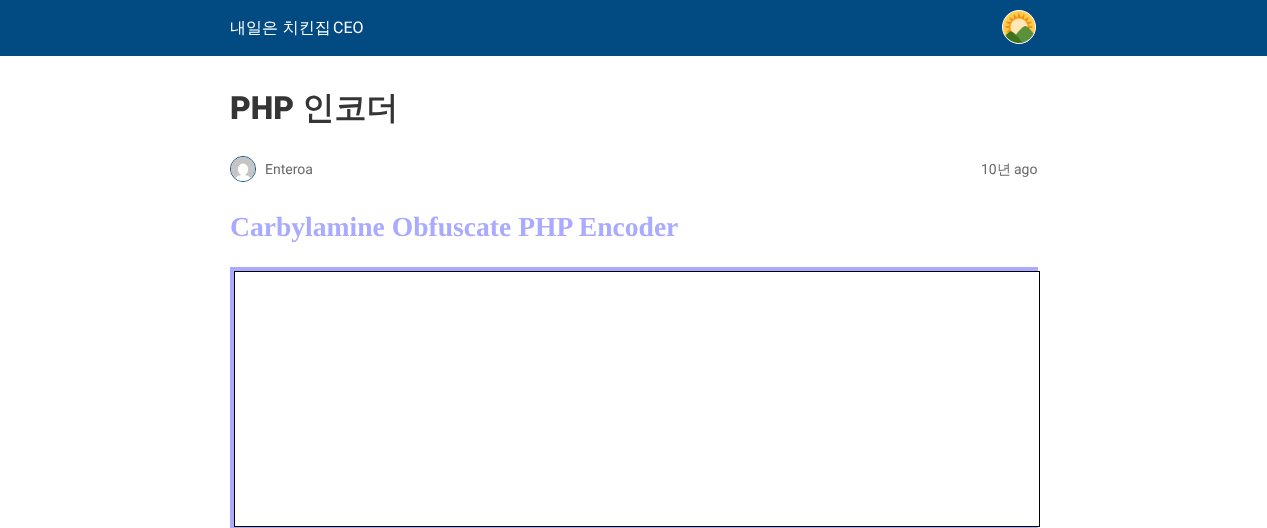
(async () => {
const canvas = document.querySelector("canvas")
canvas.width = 1267
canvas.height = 528
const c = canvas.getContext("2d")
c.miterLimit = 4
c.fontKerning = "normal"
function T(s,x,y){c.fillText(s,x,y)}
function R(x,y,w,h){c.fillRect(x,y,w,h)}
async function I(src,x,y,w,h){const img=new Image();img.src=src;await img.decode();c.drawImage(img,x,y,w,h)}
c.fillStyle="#fff"
R(0,0,1267,528)
c.fillStyle="#024a82"
R(0,0,1267,56)
c.font="500 16px WenQuanYi Zen Hei"
c.fillStyle="#fff"
T("내일은 치킨집",230,33)
c.font="16px Roboto"
T("CEO",333,33)
c.beginPath()
c.arc(1019,27,16.5,0,7)
c.fill()
c.strokeStyle="#fff"
c.stroke()
await I("1.png",1003,11,32,32)
c.font="900 32px Roboto"
c.fillStyle="#353535"
T("PHP",230,119)
c.font="bold 32px WenQuanYi Zen Hei"
T("인코더",302,119)
c.beginPath()
c.arc(243,169,12.5,0,7)
c.strokeStyle="#024a82"
c.stroke()
await I("2.png",231,157,24,24)
c.font="14px Roboto"
c.fillStyle="#696969"
T("Enteroa",265,174)
T("10",981,174)
c.font="500 14px WenQuanYi Zen Hei"
T("년",997,174)
c.font="14px Roboto"
T("ago",1014,174)
c.font="bold 27.6px Liberation Serif"
c.fillStyle="#aaf"
T("Carbylamine Obfuscate PHP Encoder",230,236)
R(230,267,808,261)
c.fillStyle="#fff"
R(235,272,803,254)
c.strokeStyle="#000"
c.strokeRect(234.5,271.5,805,255)
})()
